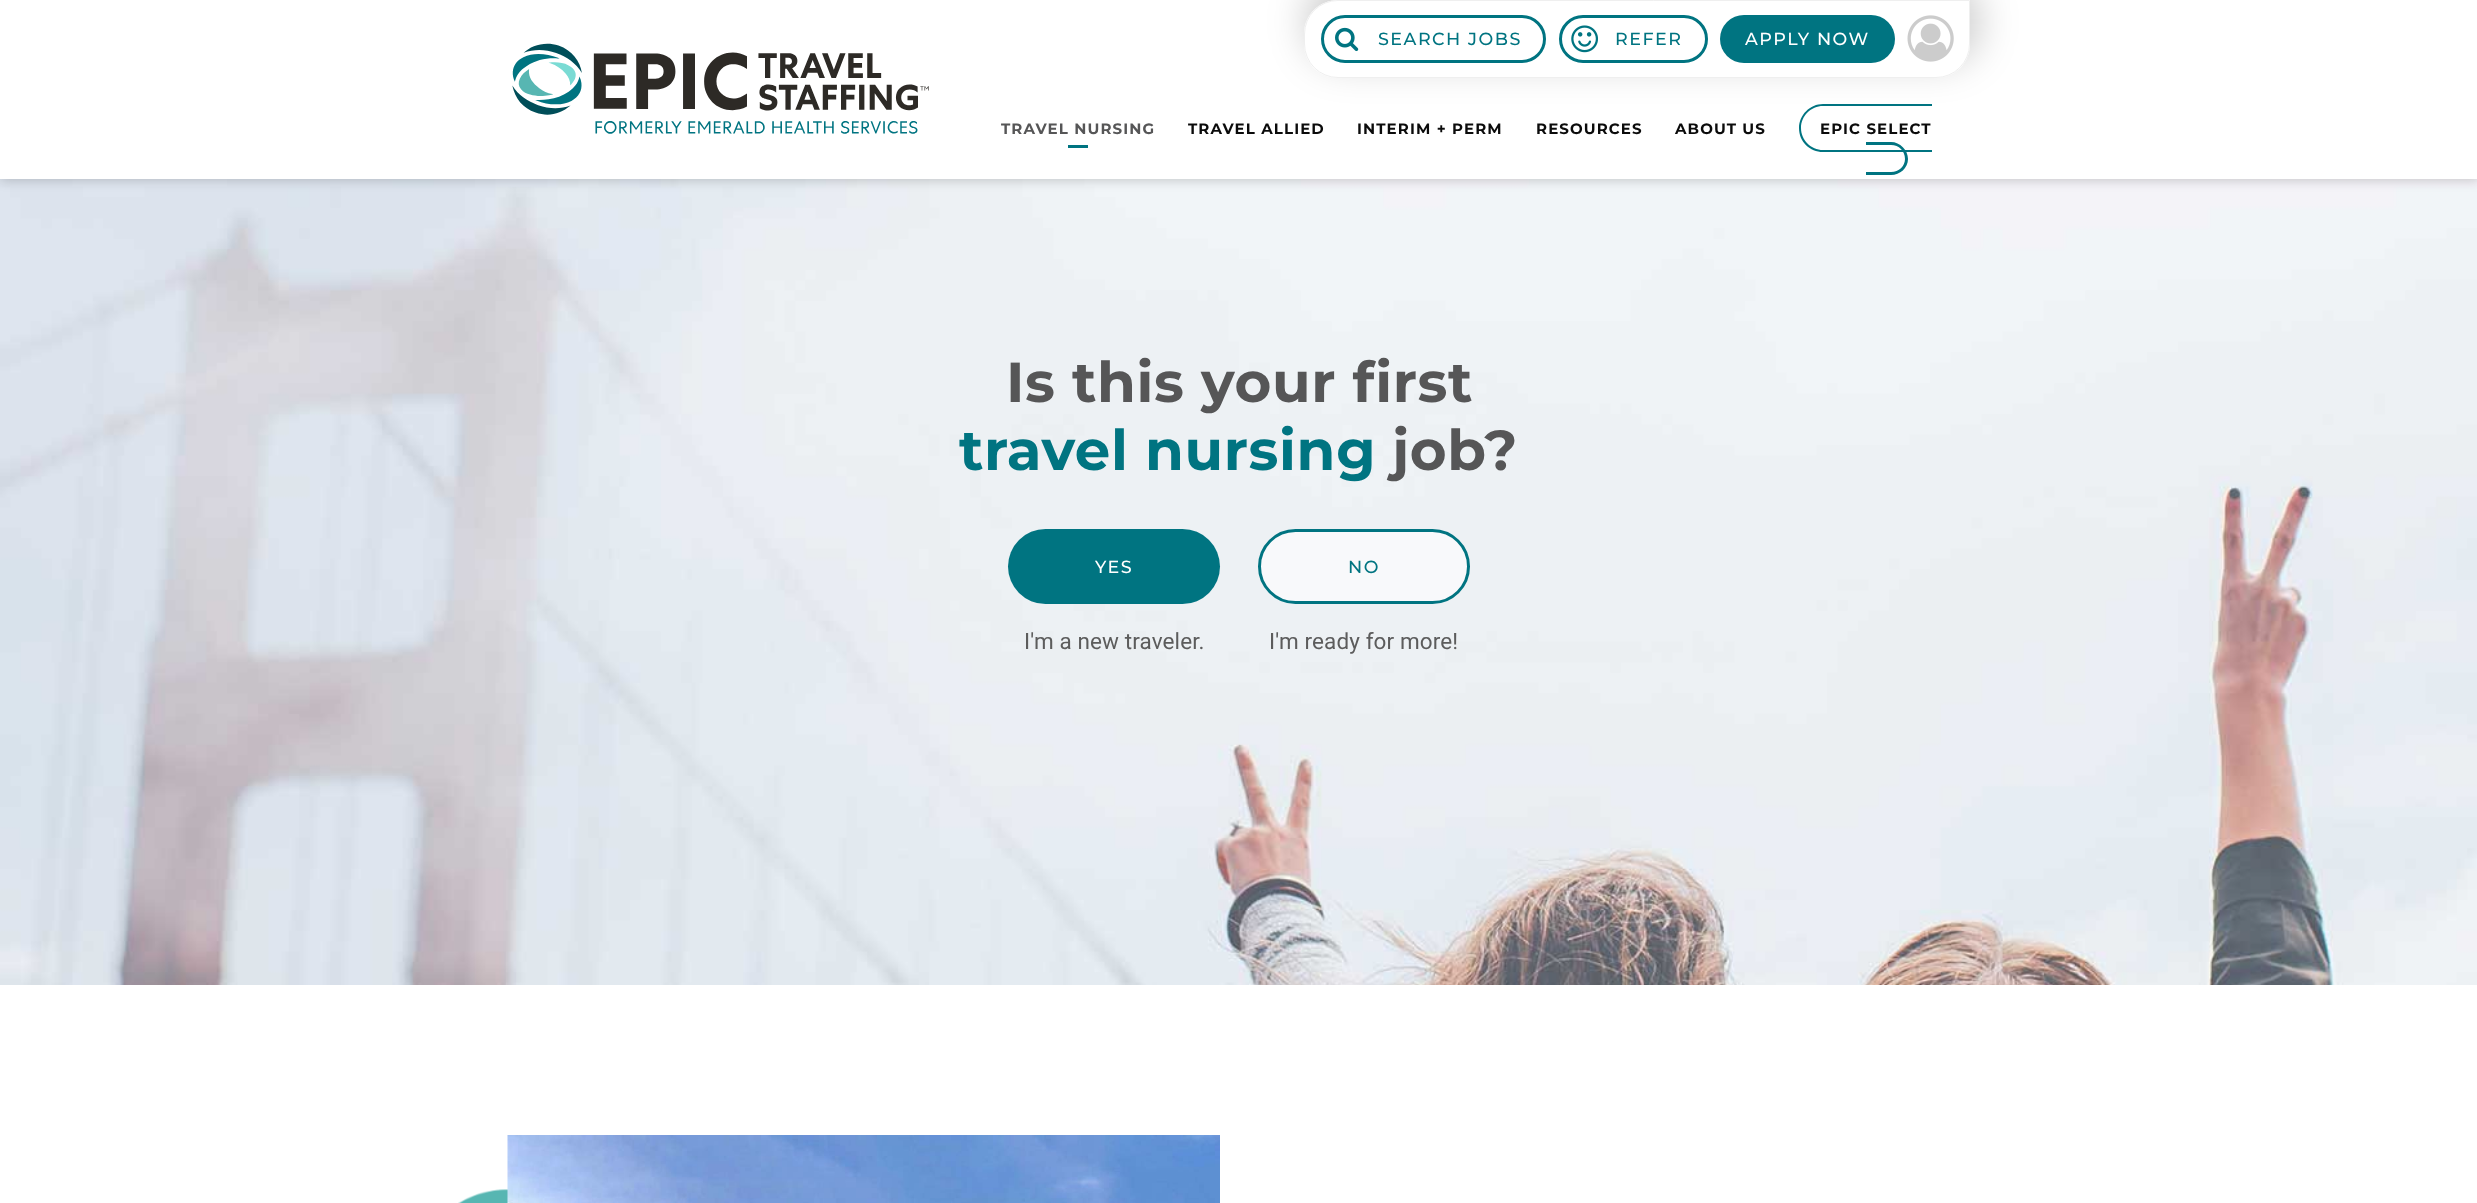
(async () => {
const canvas = document.querySelector("canvas")
canvas.width = 2477
canvas.height = 1203
const c = canvas.getContext("2d")
c.miterLimit = 4
c.fontKerning = "normal"
function T(s,x,y){c.fillText(s,x,y)}
function R(x,y,w,h){c.fillRect(x,y,w,h)}
function Q(x,y,w,h,r){c.beginPath();c.roundRect(x,y,w,h,r);c.fill()}
async function I(src,x,y,w,h){const img=new Image();img.src=src;await img.decode();c.drawImage(img,x,y,w,h)}
let path
c.fillStyle="#fff"
R(0,0,2477,1203)
await I("5.png",0,179,2477,806)
c.fillStyle="#00000033"
c.filter="blur(6px)"
c.beginPath()
c.rect(1,1,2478,179)
c.fill()
c.filter="none"
c.fillStyle="#fff"
R(0,0,2477,179)
c.save()
path = new Path2D("M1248 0h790v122h-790zm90 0h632v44c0 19-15 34-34 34h-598c-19 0-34-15-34-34v-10c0-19 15-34 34-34z")
c.clip(path,"evenodd")
c.fillStyle="#00000033"
c.filter="blur(19px)"
c.beginPath()
c.roundRect(1306,-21,674,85,38)
c.fill()
c.filter="none"
c.restore()
c.beginPath()
c.roundRect(1304.5,.5,665,77,[33.5,0,33.5,33.5])
c.strokeStyle="#efefef"
c.stroke()
c.beginPath()
c.roundRect(1322.5,16.5,222,45,22.5)
c.strokeStyle="#007481"
c.lineWidth=3
c.stroke()
await I("1.png",1335,27,24,25)
c.letterSpacing="1.5px"
c.font="500 17.5px Montserrat"
c.fillStyle="#007481"
T("SEARCH JOBS",1378,45)
c.beginPath()
c.roundRect(1560.5,16.5,146,45,22.5)
c.stroke()
await I("2.png",1571,25,27,28)
T("REFER",1615,45)
Q(1720,15,175,48,24)
c.fillStyle="#fff"
T("APPLY NOW",1745,45)
await I("3.png",1907,15,47,47)
await I("4.png",512,43,417,91)
c.letterSpacing="1.1px"
c.font="bold 15px Montserrat"
c.fillStyle="#565657"
T("TRAVEL NURSING",1001,134)
c.fillStyle="#007481"
R(1068,145,20,3)
c.fillStyle="#0b0b0b"
T("TRAVEL ALLIED",1188,134)
T("INTERIM + PERM",1357,134)
T("RESOURCES",1536,134)
T("ABOUT US",1675,134)
c.fillStyle="#007481"
path = new Path2D("M1823 104h109v48h-109c-13 0-24-10-24-24c0-13 11-24 24-24zm0 2h109v44h-109c-12 0-22-10-22-22c0-12 10-22 22-22z")
c.fill(path,"evenodd")
c.fillStyle="#0b0b0b"
T("EPIC SELECT",1820,134)
c.fillStyle="#007481"
path = new Path2D("M1866 142h25c9 0 17 8 17 17c0 9-8 16-17 16h-25zm0 3h25c8 0 14 6 14 14c0 7-6 13-14 13h-25z")
c.fill(path,"evenodd")
c.letterSpacing="0.6px"
c.font="bold 56.25px Montserrat"
c.fillStyle="#565657"
T("Is this your first",1006,402)
c.fillStyle="#007481"
T("travel nursing",959,470)
c.fillStyle="#565657"
T("job?",1392,470)
c.fillStyle="#007481"
Q(1008,529,212,75,37.5)
c.letterSpacing="1.5px"
c.font="500 17.5px Montserrat"
c.fillStyle="#fff"
T("YES",1095,573)
c.letterSpacing="0.1px"
c.font="22.5px Roboto"
c.fillStyle="#5c5c5c"
T("I'm a new traveler.",1024,649)
c.fillStyle="#f8f9fb"
c.beginPath()
c.roundRect(1259.5,530.5,209,72,36)
c.fill()
c.stroke()
c.letterSpacing="1.5px"
c.font="500 17.5px Montserrat"
c.fillStyle="#007481"
T("NO",1348,573)
c.letterSpacing="0.1px"
c.font="22.5px Roboto"
c.fillStyle="#5c5c5c"
T("I'm ready for more!",1269,649)
await I("6.png",458,1189,50,14)
await I("7.png",507,1135,713,68)
})()
